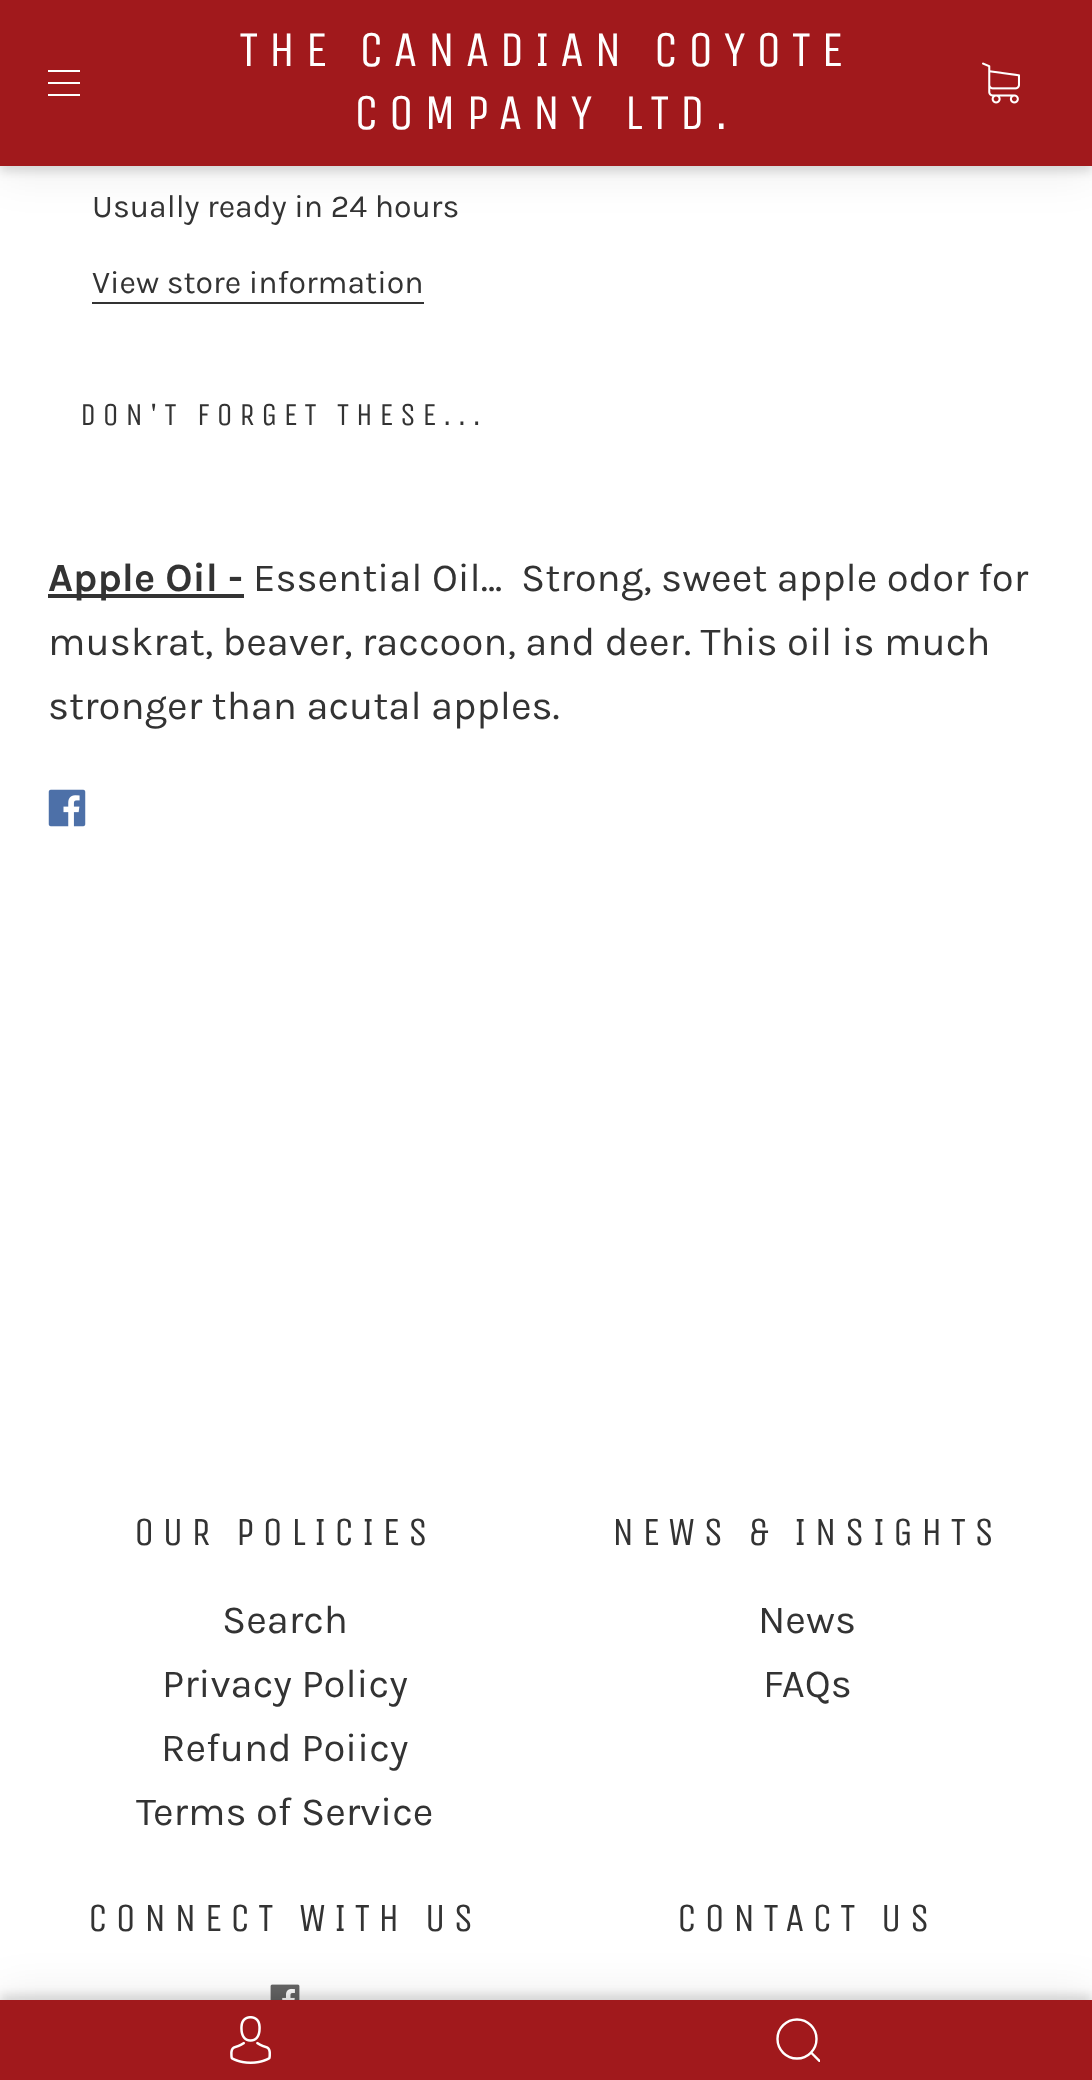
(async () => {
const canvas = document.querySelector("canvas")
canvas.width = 1092
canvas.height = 2080
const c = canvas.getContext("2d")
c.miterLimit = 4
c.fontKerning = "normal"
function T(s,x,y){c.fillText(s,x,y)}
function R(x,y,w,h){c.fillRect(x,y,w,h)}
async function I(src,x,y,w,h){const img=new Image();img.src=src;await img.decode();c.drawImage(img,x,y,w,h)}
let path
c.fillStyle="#fff"
R(0,0,1092,2080)
c.fillStyle="#0000000f"
c.filter="blur(20px)"
c.beginPath()
c.rect(0,12,1092,166)
c.fill()
c.filter="none"
c.fillStyle="#0000001f"
c.filter="blur(5px)"
c.beginPath()
c.rect(0,6,1092,166)
c.fill()
c.filter="none"
c.fillStyle="#a1191c"
R(0,0,1092,166)
c.fillStyle="#fff"
R(48,70,32,2)
R(48,82,32,2)
R(48,94,32,2)
c.letterSpacing="10px"
c.font="50px Unica One"
T("THE CANADIAN COYOTE",239,66)
T("COMPANY LTD.",354,129)
await I("1.png",982,62,38,42)
c.letterSpacing="0px"
c.font="32px Karla"
c.fillStyle="#333"
T("Usually ready in 24 hours",92,217)
T("View store information",92,293)
R(92,302,332,2)
c.letterSpacing="6.4px"
c.font="32px Unica One"
T("DON'T FORGET THESE...",80,425)
R(48,594,196,4)
c.letterSpacing="0px"
c.font="bold 40px Karla"
T("Apple Oil -",48,591)
c.font="40px Karla"
T("Essential Oil...",253,591)
T("Strong, sweet apple odor for",521,591)
T("muskrat, beaver, raccoon, and deer. This oil is much",48,655)
T("stronger than acutal apples.",48,719)
await I("2.png",48,789,38,38)
c.letterSpacing="8px"
c.font="40px Unica One"
T("OUR POLICIES",134,1545)
c.letterSpacing="0px"
c.font="40px Karla"
T("Search",222,1633)
T("Privacy Policy",162,1697)
T("Refund Poiicy",161,1761)
T("Terms of Service",136,1825)
c.letterSpacing="8px"
c.font="40px Unica One"
T("NEWS & INSIGHTS",612,1545)
c.letterSpacing="0px"
c.font="40px Karla"
T("News",758,1633)
T("FAQs",763,1697)
c.letterSpacing="8px"
c.font="40px Unica One"
T("CONNECT WITH US",88,1931)
await I("3.png",270,1984,30,16)
T("CONTACT US",677,1931)
c.fillStyle="#0000000f"
c.filter="blur(20px)"
c.beginPath()
c.rect(0,1988,1092,80)
c.fill()
c.filter="none"
c.fillStyle="#0000001f"
c.filter="blur(5px)"
c.beginPath()
c.rect(0,1994,1092,80)
c.fill()
c.filter="none"
c.fillStyle="#a1191c"
R(0,2000,1092,80)
await I("4.png",230,2016,41,48)
c.beginPath()
c.arc(797,2039,19.5,0,7)
c.strokeStyle="#fff"
c.lineWidth=2.4
c.stroke()
c.save()
c.beginPath()
c.rect(776,2018,44,44)
c.clip()
path = new Path2D("M810.5 2052l14 14")
c.stroke(path)
c.restore()
})()
